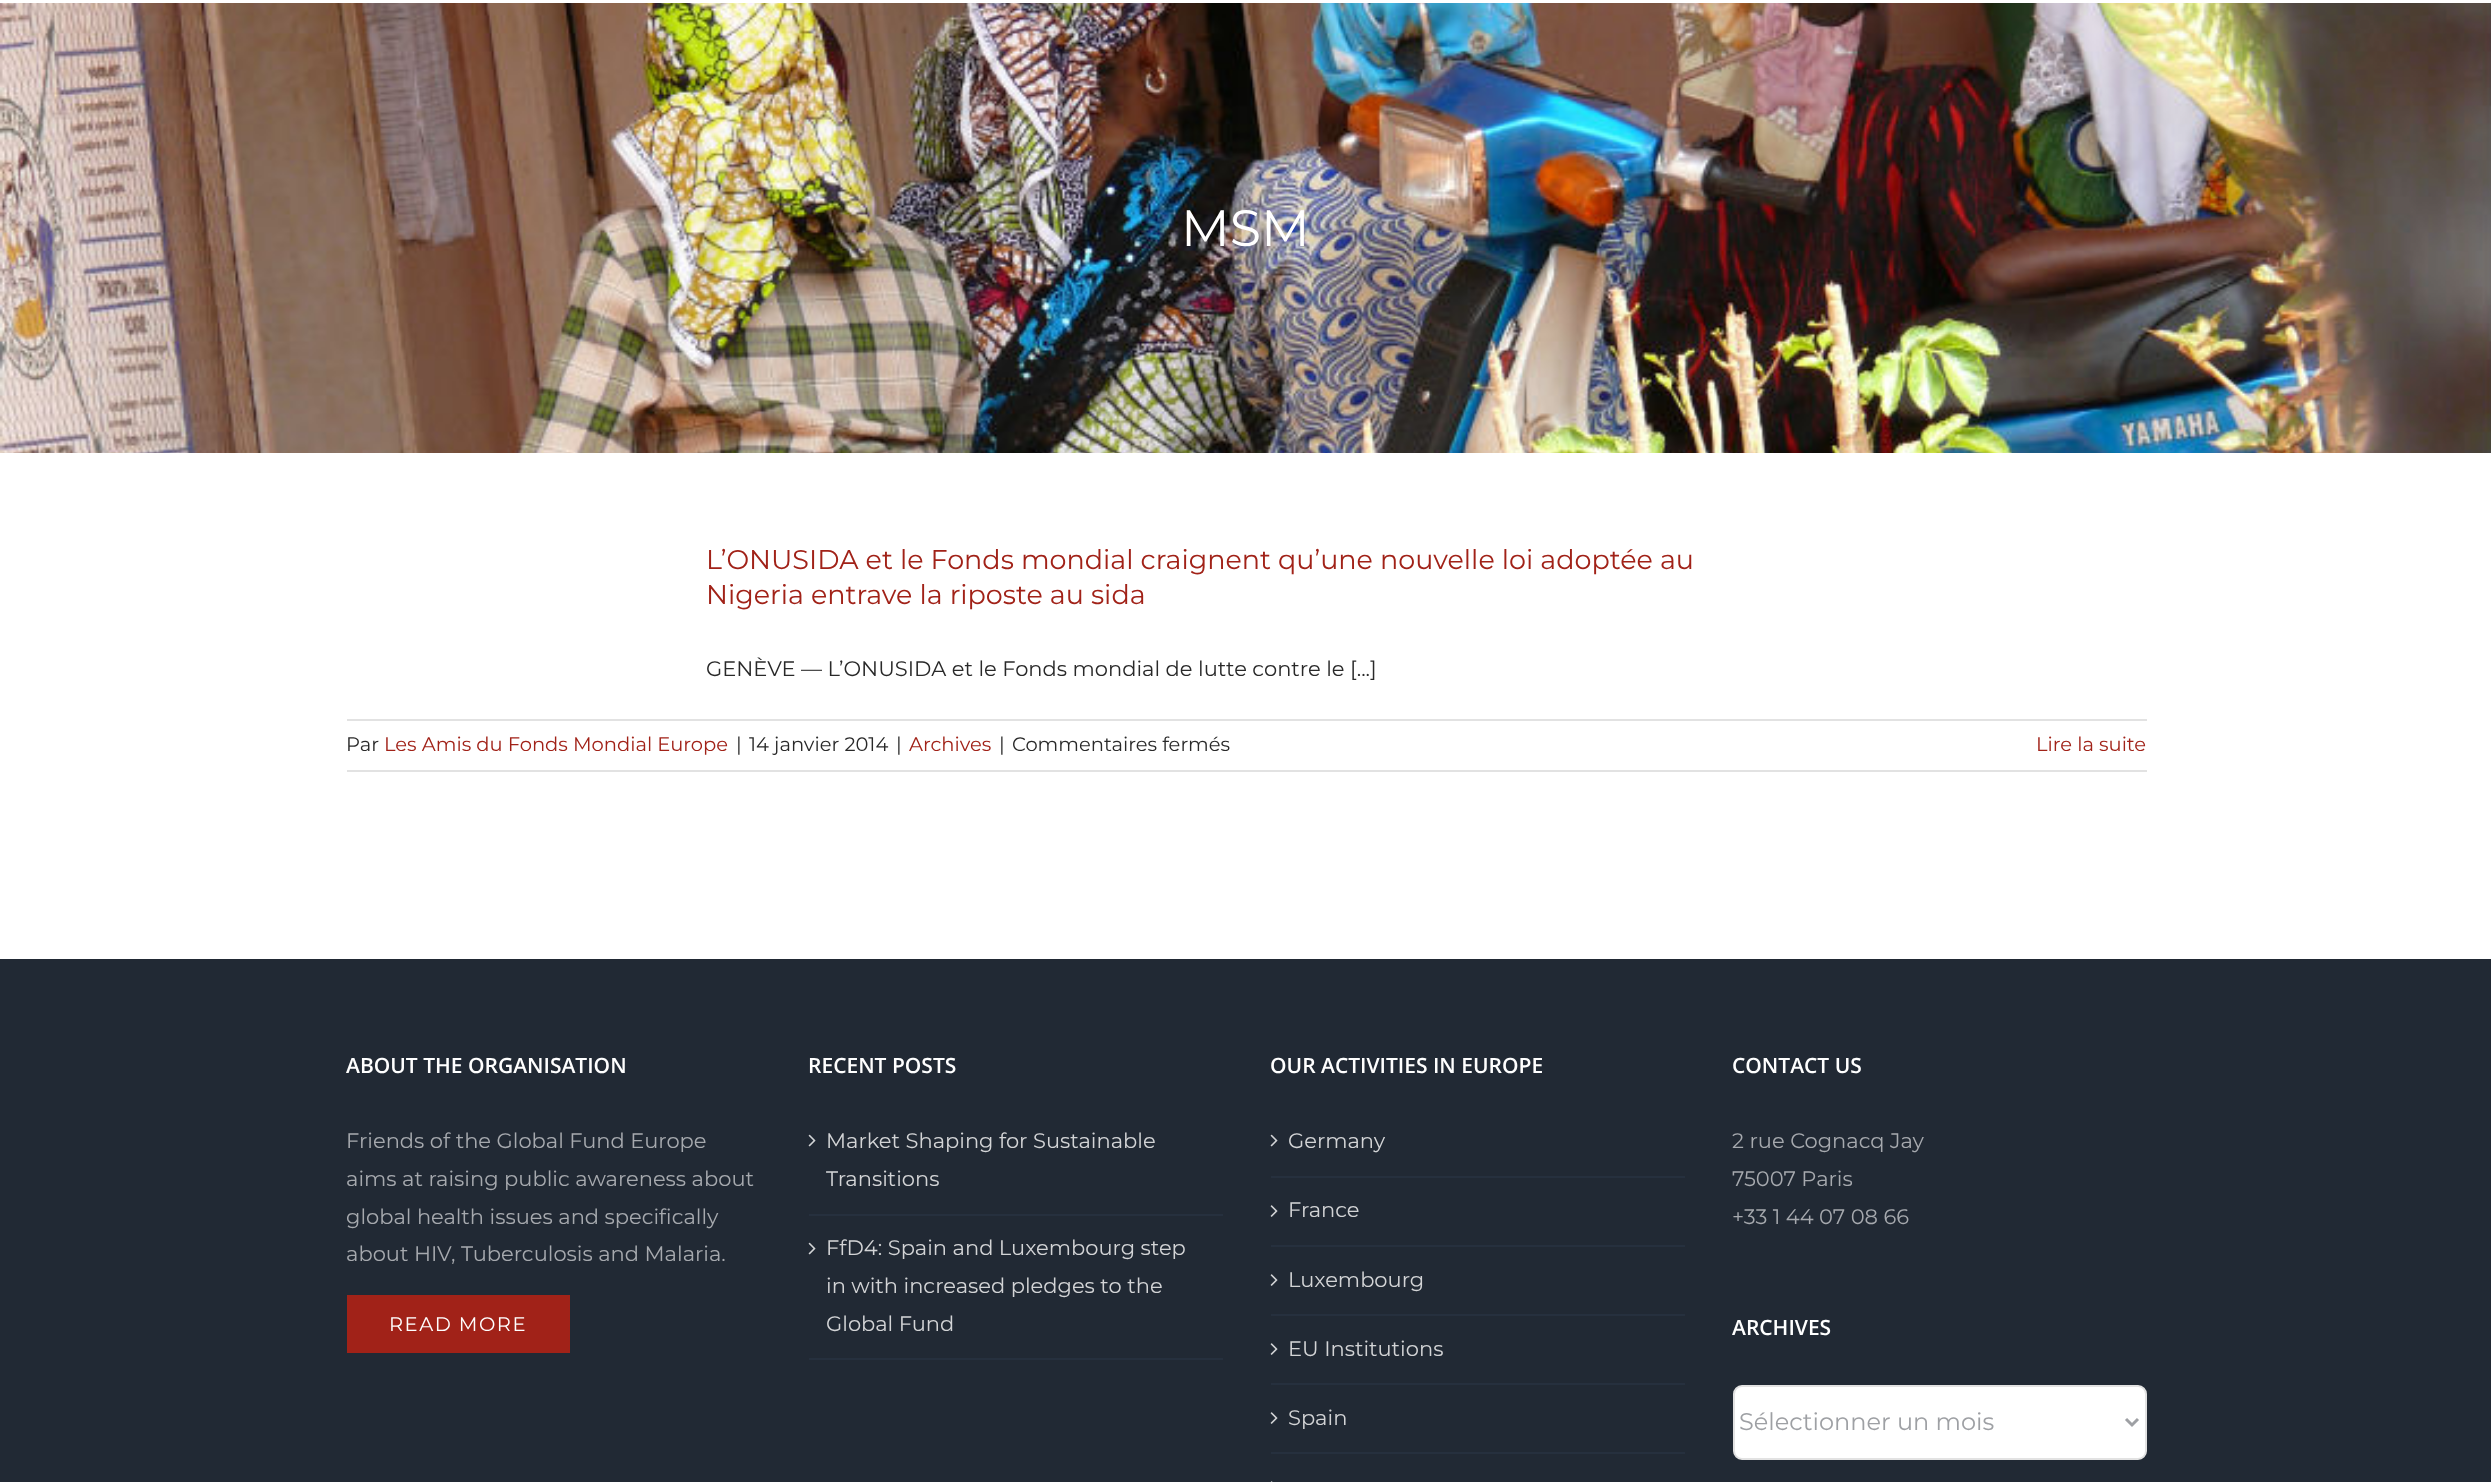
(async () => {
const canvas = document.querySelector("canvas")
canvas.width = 2491
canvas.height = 1482
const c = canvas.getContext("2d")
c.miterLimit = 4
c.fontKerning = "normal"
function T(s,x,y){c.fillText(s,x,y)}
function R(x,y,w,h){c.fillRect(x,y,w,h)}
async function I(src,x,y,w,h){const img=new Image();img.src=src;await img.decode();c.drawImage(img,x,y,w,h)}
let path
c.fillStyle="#fff"
R(0,0,2491,1482)
await I("1.png",0,3,2491,450)
c.font="51px Montserrat"
T("MSM",1181,246)
c.font="27px Montserrat"
c.fillStyle="#a12218"
T("L’ONUSIDA et le Fonds mondial craignent qu’une nouvelle loi adoptée au",706,569)
T("Nigeria entrave la riposte au sida",706,604)
c.font="21px Montserrat"
c.fillStyle="#292929"
T("GENÈVE — L’ONUSIDA et le Fonds mondial de lutte contre le [...]",706,676)
c.fillStyle="#e2e2e2"
R(347,719,1800,2)
R(347,770,1800,2)
c.font="19.5px Montserrat"
c.fillStyle="#292929"
T("Par",346,751)
c.fillStyle="#a12218"
T("Les Amis du Fonds Mondial Europe",384,751)
c.fillStyle="#292929"
T("|",736,751)
T("14 janvier 2014",749,751)
T("|",896,751)
c.fillStyle="#a12218"
T("Archives",909,751)
c.fillStyle="#292929"
T("|",999,751)
T("Commentaires fermés",1012,751)
c.fillStyle="#a12218"
T("Lire la suite",2036,751)
c.fillStyle="#212934"
R(0,959,2491,523)
c.font="600 21px Open Sans"
c.fillStyle="#fff"
T("ABOUT THE ORGANISATION",346,1073)
c.font="21px Montserrat"
c.fillStyle="#a6a9ae"
T("Friends of the Global Fund Europe",346,1148)
T("aims at raising public awareness about",346,1186)
T("global health issues and specifically",346,1224)
T("about HIV, Tuberculosis and Malaria.",346,1261)
c.fillStyle="#a12218"
R(347,1295,223,58)
c.letterSpacing="1.5px"
c.font="19.5px Montserrat"
c.fillStyle="#fff"
T("READ MORE",389,1331)
c.letterSpacing="0px"
c.font="600 21px Open Sans"
T("RECENT POSTS",808,1073)
c.fillStyle="#26303e"
R(809,1214,414,2)
await I("2.png",808,1134,8,13)
c.font="21px Montserrat"
c.fillStyle="#d3d4d6"
T("Market Shaping for Sustainable",826,1148)
T("Transitions",826,1186)
c.fillStyle="#26303e"
R(809,1358,414,2)
await I("2.png",808,1242,8,13)
c.fillStyle="#d3d4d6"
T("FfD4: Spain and Luxembourg step",826,1255)
T("in with increased pledges to the",826,1293)
T("Global Fund",826,1331)
c.font="600 21px Open Sans"
c.fillStyle="#fff"
T("OUR ACTIVITIES IN EUROPE",1270,1073)
c.fillStyle="#26303e"
R(1271,1176,414,2)
await I("2.png",1270,1134,8,13)
c.font="21px Montserrat"
c.fillStyle="#d3d4d6"
T("Germany",1288,1148)
c.fillStyle="#26303e"
R(1271,1245,414,2)
await I("3.png",1270,1205,8,12)
c.fillStyle="#d3d4d6"
T("France",1288,1217)
c.fillStyle="#26303e"
R(1271,1314,414,2)
await I("3.png",1270,1274,8,12)
c.fillStyle="#d3d4d6"
T("Luxembourg",1288,1287)
c.fillStyle="#26303e"
R(1271,1383,414,2)
await I("3.png",1270,1343,8,12)
c.fillStyle="#d3d4d6"
T("EU Institutions",1288,1356)
c.fillStyle="#26303e"
R(1271,1452,414,2)
await I("3.png",1270,1412,8,12)
c.fillStyle="#d3d4d6"
T("Spain",1288,1425)
await I("4.png",1270,1481,3,1)
c.font="600 21px Open Sans"
c.fillStyle="#fff"
T("CONTACT US",1732,1073)
c.font="21px Montserrat"
c.fillStyle="#a6a9ae"
T("2 rue Cognacq Jay",1732,1148)
T("75007 Paris",1732,1186)
T("+33 1 44 07 08 66",1732,1224)
c.font="600 21px Open Sans"
c.fillStyle="#fff"
T("ARCHIVES",1732,1335)
c.beginPath()
c.roundRect(1734,1386,412,73,8)
c.fill()
c.strokeStyle="#e2e2e2"
c.lineWidth=2
c.stroke()
path = new Path2D("M2126 1419l6 6l6-6")
c.strokeStyle="#9ea0a4"
c.lineWidth=3
c.stroke(path)
c.font="24px Montserrat"
c.fillStyle="#9ea0a4"
T("Sélectionner un mois",1739,1430)
})()
